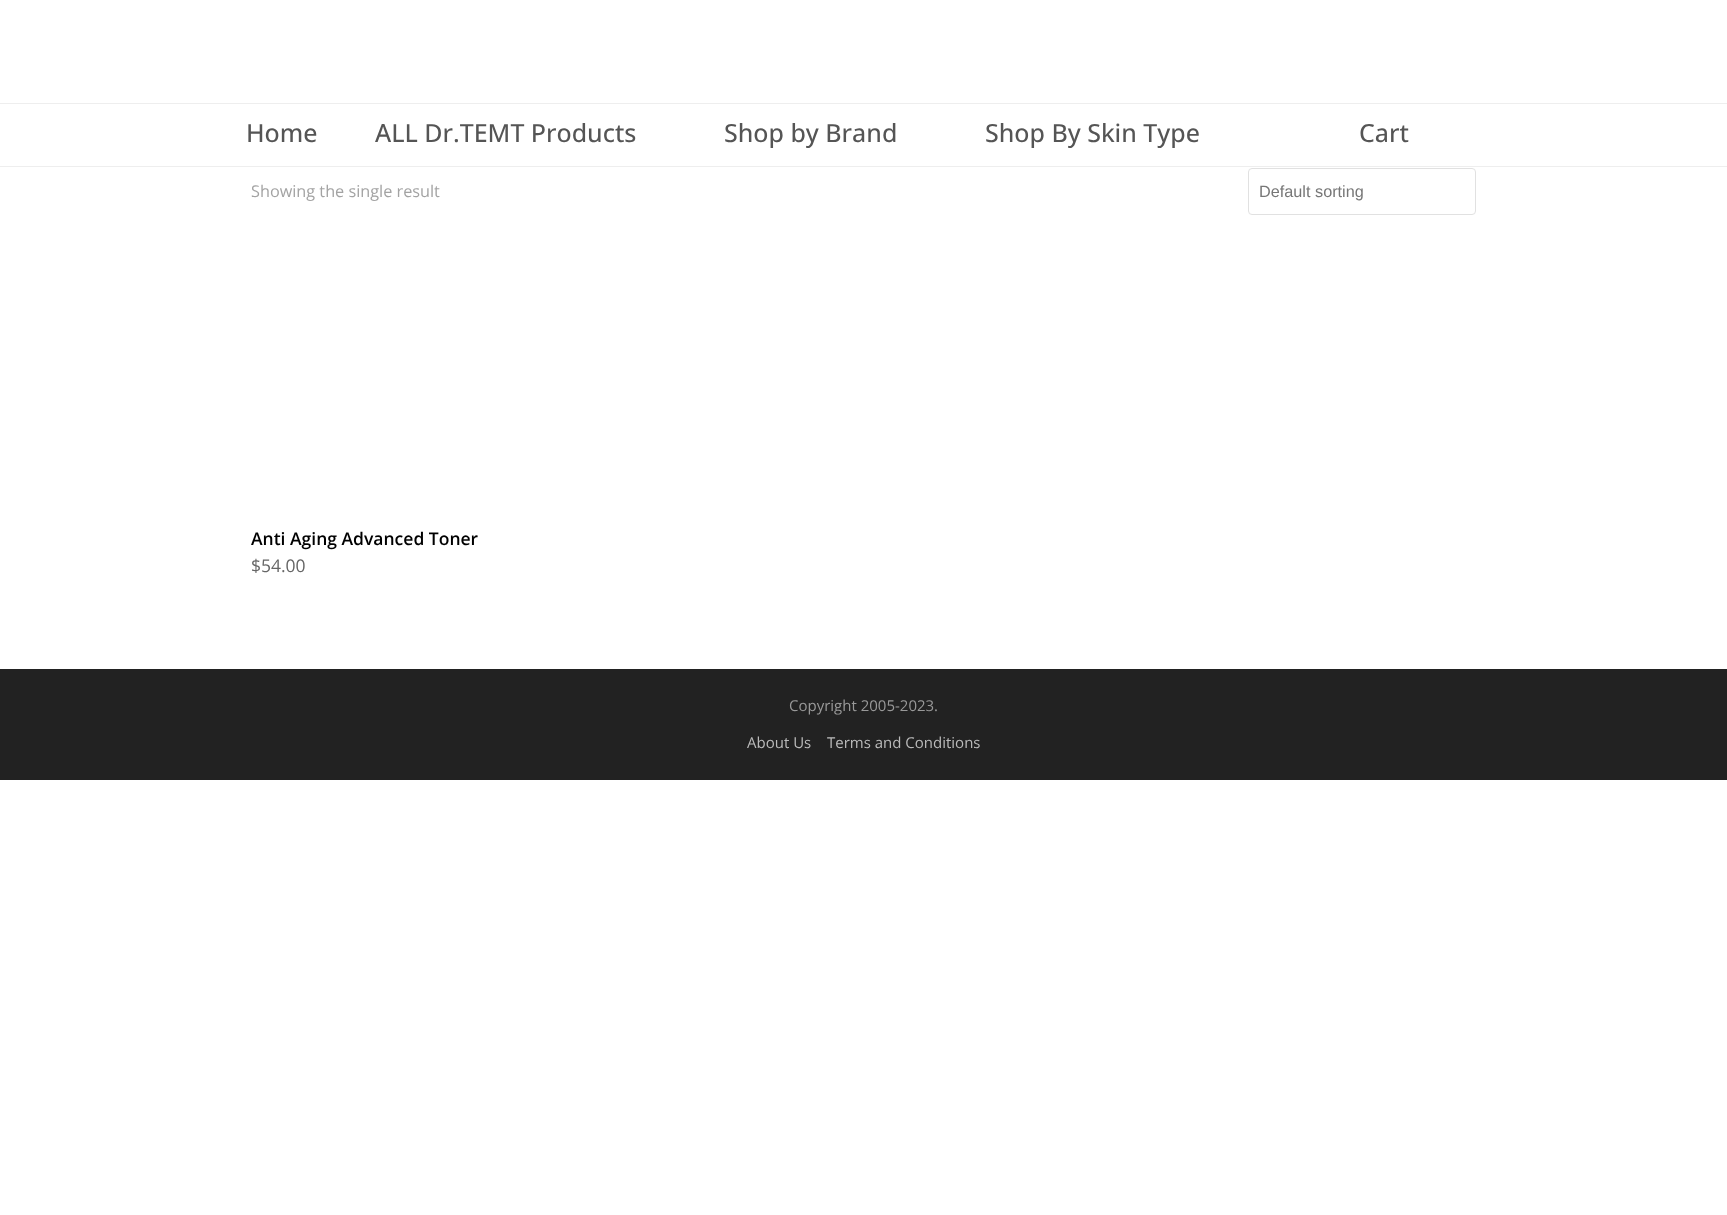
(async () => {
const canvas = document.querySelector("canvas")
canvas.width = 1727
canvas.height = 1215
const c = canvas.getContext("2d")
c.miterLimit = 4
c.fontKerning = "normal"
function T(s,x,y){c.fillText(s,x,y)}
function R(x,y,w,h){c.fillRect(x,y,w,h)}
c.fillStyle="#fff"
R(0,0,1727,1215)
c.fillStyle="#eee"
R(0,103,1727,1)
R(0,166,1727,1)
c.font="500 25px Open Sans"
c.fillStyle="#555"
T("Home",246,142)
T("ALL Dr.TEMT Products",375,142)
T("Shop by Brand",724,142)
T("Shop By Skin Type",985,142)
T("Cart",1359,142)
c.font="16.25px Open Sans"
c.fillStyle="#a3a3a3"
T("Showing the single result",251,197)
c.beginPath()
c.roundRect(1248.5,168.5,227,46,3.5)
c.strokeStyle="#e1e1e1"
c.stroke()
c.font="16.25px Liberation Sans"
c.fillStyle="#777"
T("Default sorting",1259,197)
c.font="600 17.5px Open Sans"
c.fillStyle="#000"
T("Anti Aging Advanced Toner",251,545)
c.font="17.5px Open Sans"
c.fillStyle="#666"
T("$54.00",251,572)
c.fillStyle="#222"
R(0,669,1727,111)
c.font="15px Open Sans"
c.fillStyle="#999"
T("Copyright 2005-2023.",789,711)
c.fillStyle="#bbb"
T("About Us",747,748)
T("Terms and Conditions",827,748)
})()
